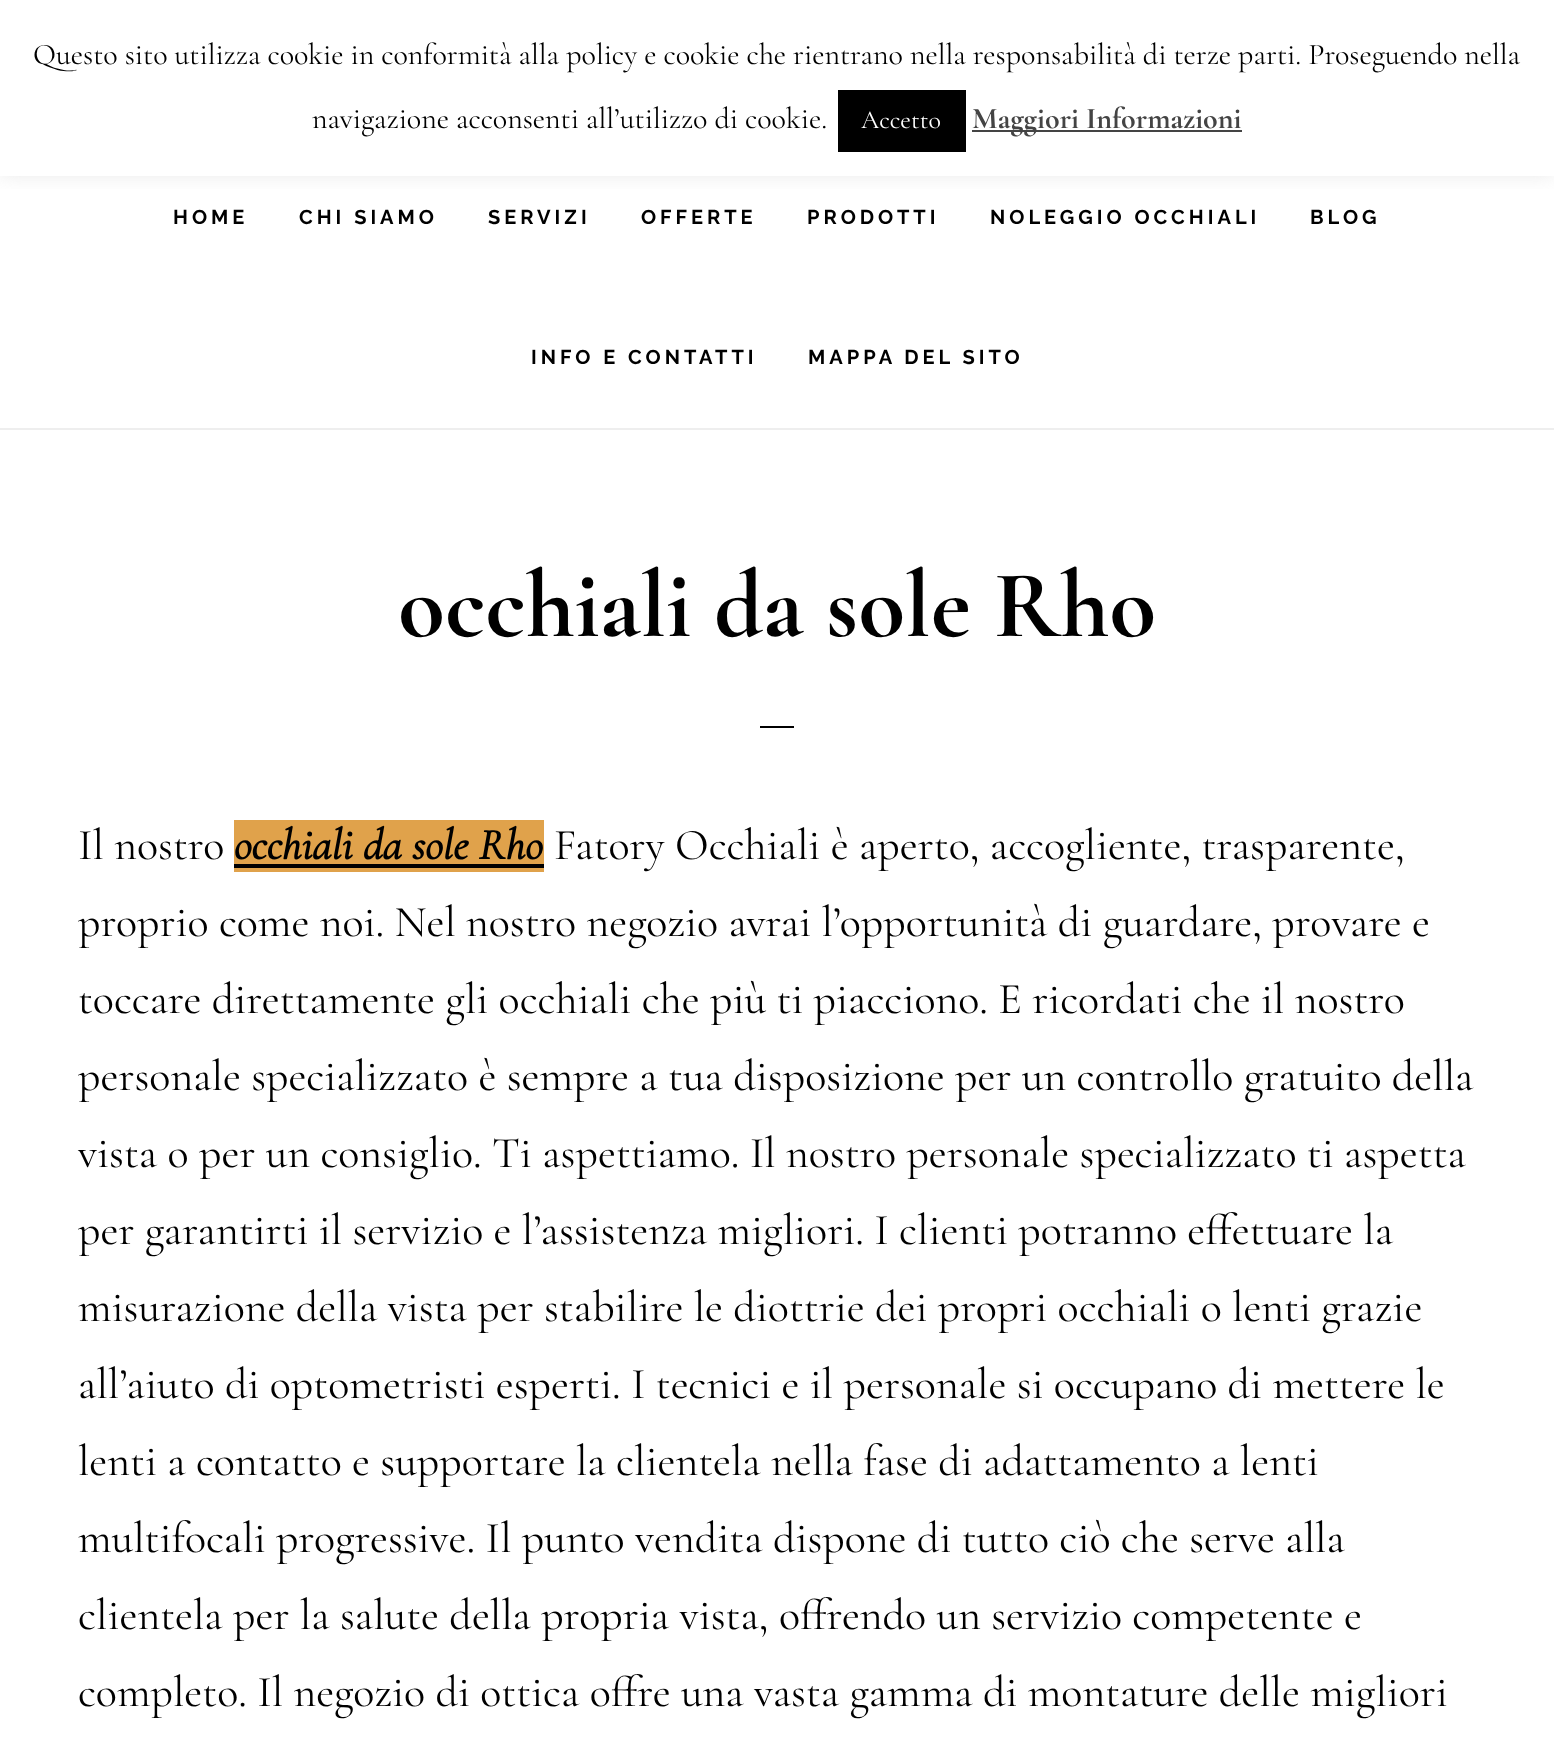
(async () => {
const canvas = document.querySelector("canvas")
canvas.width = 1554
canvas.height = 1752
const c = canvas.getContext("2d")
c.miterLimit = 4
c.fontKerning = "normal"
function T(s,x,y){c.fillText(s,x,y)}
function R(x,y,w,h){c.fillRect(x,y,w,h)}
c.fillStyle="#fff"
R(0,0,1554,1752)
c.save()
c.beginPath()
c.rect(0,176,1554,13)
c.clip()
c.fillStyle="#acabab4d"
c.filter="blur(10px)"
c.beginPath()
c.rect(0,-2,1554,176)
c.fill()
c.filter="none"
c.restore()
c.font="30px Cormorant Garamond"
c.fillStyle="#000"
T("Questo sito utilizza cookie in conformità alla policy e cookie che rientrano nella responsabilità di terze parti. Proseguendo nella",33,64)
T("navigazione acconsenti all’utilizzo di cookie.",312,128)
R(838,90,128,62)
c.font="26px Cormorant Garamond"
c.fillStyle="#fff"
T("Accetto",861,128)
c.fillStyle="#444"
R(972,130,270,2)
c.font="bold 30px Cormorant Garamond"
T("Maggiori Informazioni",972,128)
c.fillStyle="#eee"
R(0,428,1554,2)
c.letterSpacing="4px"
c.font="100 20px Raleway"
c.fillStyle="#000"
T("HOME",173,224)
T("CHI SIAMO",299,224)
T("SERVIZI",488,224)
T("OFFERTE",641,224)
T("PRODOTTI",807,224)
T("NOLEGGIO OCCHIALI",990,224)
T("BLOG",1310,224)
T("INFO E CONTATTI",531,364)
T("MAPPA DEL SITO",808,364)
c.letterSpacing="0px"
c.font="bold 96px Cormorant Garamond"
T("occhiali da sole Rho",398,636)
R(760,726,34,2)
c.font="44px Cormorant Garamond"
T("Il nostro",78,859)
c.fillStyle="#e0a24b"
R(234,820,310,52)
c.font="italic bold 44px Cormorant Garamond"
c.fillStyle="#000"
T("occhiali da sole Rho",234,859)
R(234,864,310,4)
c.font="44px Cormorant Garamond"
T("Fatory Occhiali è aperto, accogliente, trasparente,",554,859)
T("proprio come noi. Nel nostro negozio avrai l’opportunità di guardare, provare e",78,936)
T("toccare direttamente gli occhiali che più ti piacciono. E ricordati che il nostro",78,1013)
T("personale specializzato è sempre a tua disposizione per un controllo gratuito della",78,1090)
T("vista o per un consiglio. Ti aspettiamo. Il nostro personale specializzato ti aspetta",78,1167)
T("per garantirti il servizio e l’assistenza migliori. I clienti potranno effettuare la",78,1244)
T("misurazione della vista per stabilire le diottrie dei propri occhiali o lenti grazie",78,1321)
T("all’aiuto di optometristi esperti. I tecnici e il personale si occupano di mettere le",78,1398)
T("lenti a contatto e supportare la clientela nella fase di adattamento a lenti",78,1475)
T("multifocali progressive. Il punto vendita dispone di tutto ciò che serve alla",78,1552)
T("clientela per la salute della propria vista, offrendo un servizio competente e",78,1629)
T("completo. Il negozio di ottica offre una vasta gamma di montature delle migliori",78,1706)
})()
